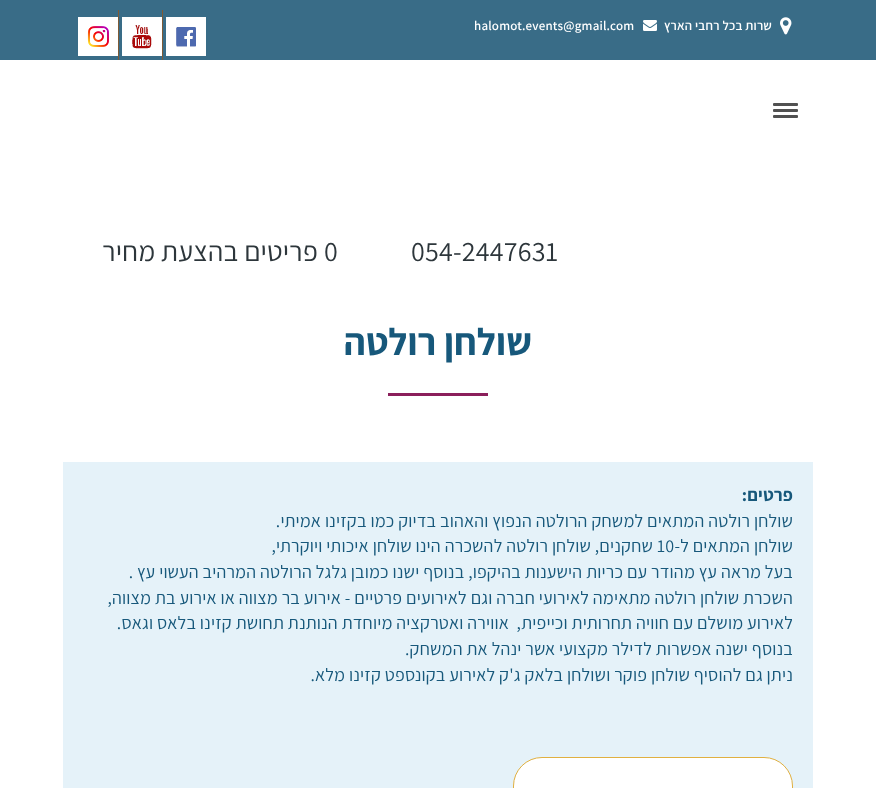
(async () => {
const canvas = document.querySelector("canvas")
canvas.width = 876
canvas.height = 788
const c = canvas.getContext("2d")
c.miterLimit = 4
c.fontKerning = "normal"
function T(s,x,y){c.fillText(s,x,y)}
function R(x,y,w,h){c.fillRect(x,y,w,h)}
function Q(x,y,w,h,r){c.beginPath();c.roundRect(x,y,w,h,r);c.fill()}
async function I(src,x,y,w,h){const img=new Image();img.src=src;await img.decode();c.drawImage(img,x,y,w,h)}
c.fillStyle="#fff"
R(0,0,876,788)
c.fillStyle="#396c87"
R(0,0,876,60)
await I("1.png",780,17,12,18)
c.letterSpacing="0.2px"
c.direction="rtl"
c.font="600 13px Assistant"
c.fillStyle="#fff"
T("שרות בכל רחבי הארץ",772,30)
await I("2.png",643,20,14,11)
c.direction="ltr"
T("halomot.events@gmail.com",474,30)
await I("3.png",166,17,40,39)
c.fillStyle="#7e5a36"
R(162,10,1,50)
await I("4.png",122,17,40,39)
R(118,10,1,50)
await I("5.png",78,17,40,39)
c.fillStyle="#515151"
Q(773,103,25,3,1)
Q(773,109,25,3,1)
Q(773,115,25,3,1)
c.font="200 28px Assistant"
c.fillStyle="#2d363b"
T("054-2447631",411,261)
T("0",324,261)
c.direction="rtl"
T("פריטים בהצעת מחיר",318,261)
c.font="bold 38px Assistant"
c.fillStyle="#17587b"
T("שולחן רולטה",532,355)
c.fillStyle="#8b1f5b"
R(388,393,100,3)
c.fillStyle="#e5f2f9"
R(63,462,750,326)
c.font="bold 18px Assistant"
c.fillStyle="#17587b"
T("פרטים:",793,501)
c.font="200 18px Assistant"
T("שולחן רולטה המתאים למשחק הרולטה הנפוץ והאהוב בדיוק כמו בקזינו אמיתי.",793,527)
T("שולחן המתאים ל-",793,552)
c.direction="ltr"
T("10",657,552)
c.direction="rtl"
T("שחקנים, שולחן רולטה להשכרה הינו שולחן איכותי ויוקרתי,",653,552)
T("בעל מראה עץ מהודר עם כריות הישענות בהיקפו, בנוסף ישנו כמובן גלגל הרולטה המרהיב העשוי עץ .",793,578)
T("השכרת שולחן רולטה מתאימה לאירועי חברה וגם לאירועים פרטיים - אירוע בר מצווה או אירוע בת מצווה,",793,604)
T("לאירוע מושלם עם חוויה תחרותית וכייפית,  אווירה ואטרקציה מיוחדת הנותנת תחושת קזינו בלאס וגאס.",793,629)
T("בנוסף ישנה אפשרות לדילר מקצועי אשר ינהל את המשחק.",793,655)
T("ניתן גם להוסיף שולחן פוקר ושולחן בלאק ג'ק לאירוע בקונספט קזינו מלא.",793,681)
c.fillStyle="#fff"
c.beginPath()
c.roundRect(513.5,757.5,279,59,28.5)
c.fill()
c.strokeStyle="#e0b041"
c.stroke()
})()
